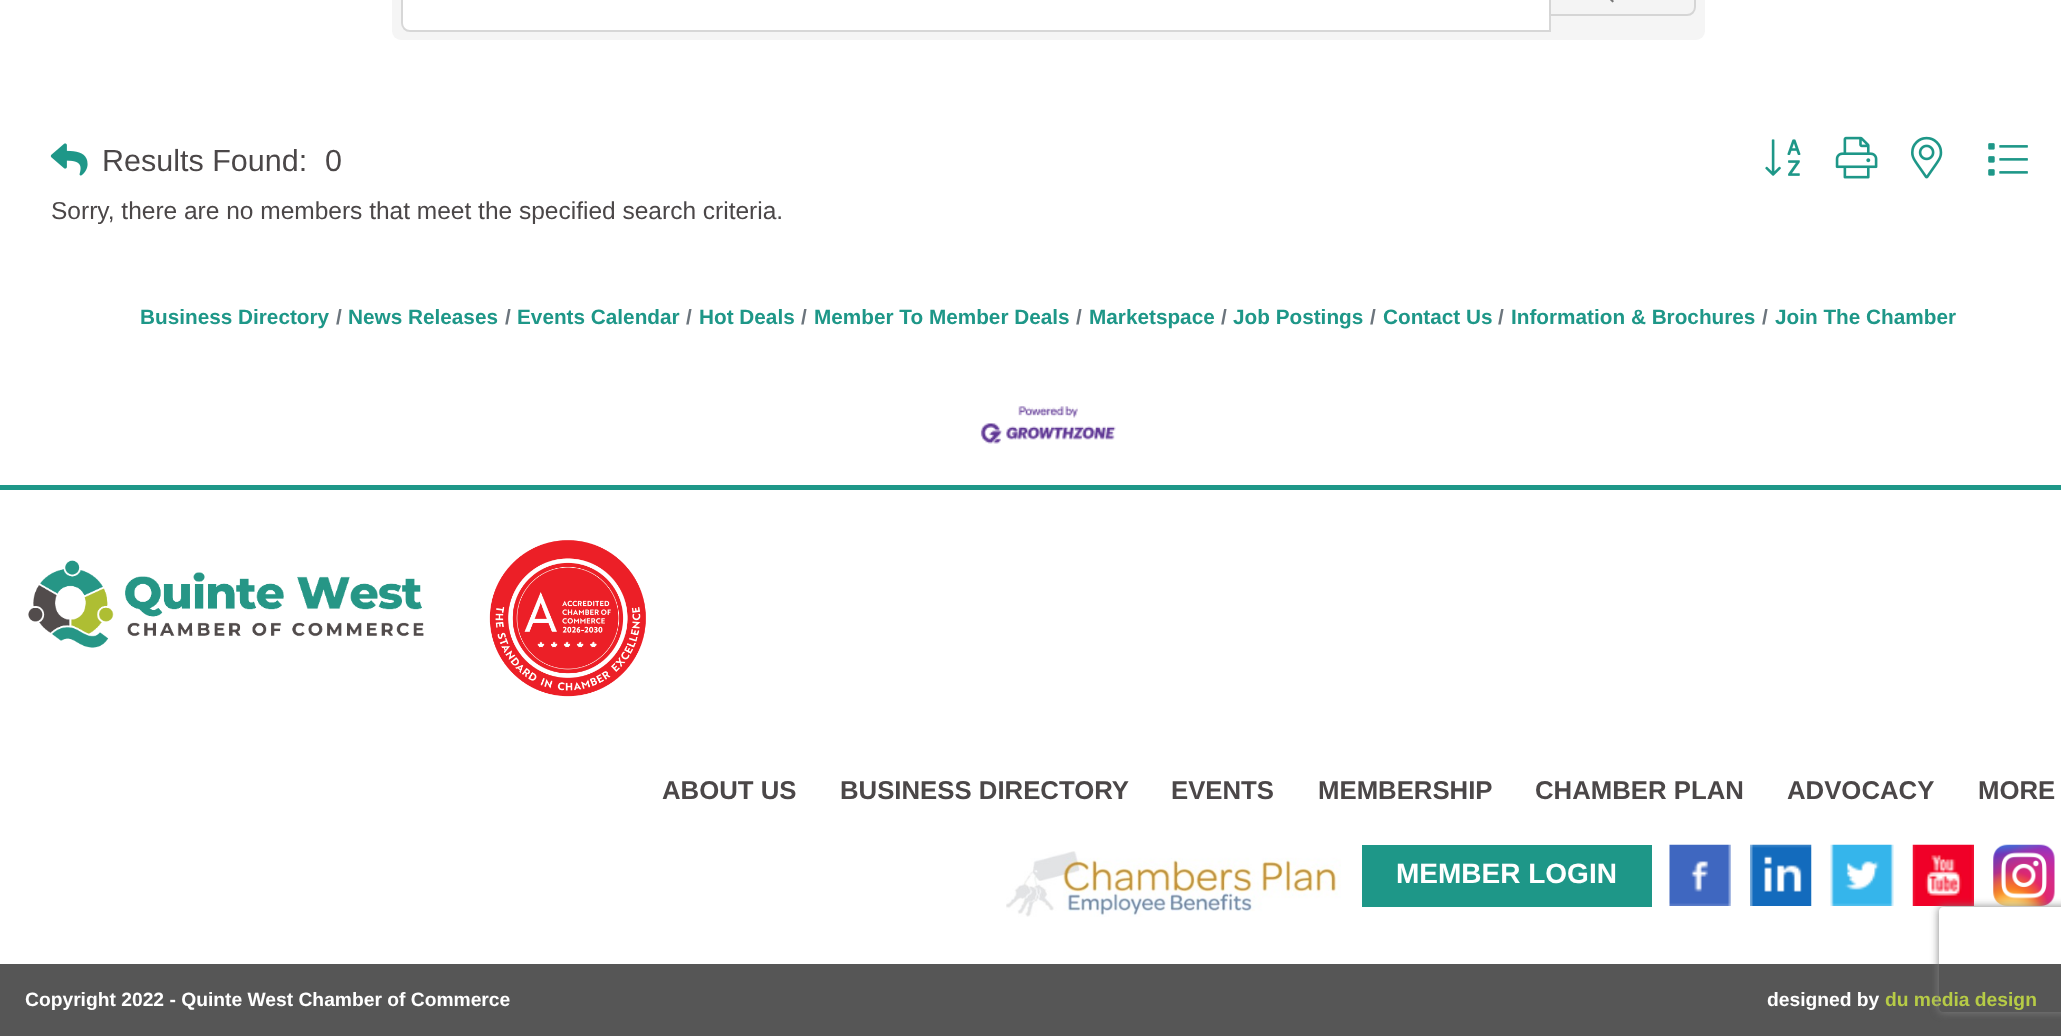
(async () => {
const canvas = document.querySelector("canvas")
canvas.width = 2061
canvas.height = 1036
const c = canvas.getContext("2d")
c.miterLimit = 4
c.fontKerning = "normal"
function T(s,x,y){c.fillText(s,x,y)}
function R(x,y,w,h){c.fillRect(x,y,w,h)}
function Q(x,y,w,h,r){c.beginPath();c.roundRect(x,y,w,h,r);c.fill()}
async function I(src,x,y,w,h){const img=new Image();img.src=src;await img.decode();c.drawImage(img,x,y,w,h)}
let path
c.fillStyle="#fff"
R(0,0,2061,1036)
c.fillStyle="#f5f5f5"
Q(392,-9,1313,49,9)
c.fillStyle="#fff"
path = new Path2D("M410-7h1139v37h-1139c-4 0-7-3-7-7v-23c0-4 3-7 7-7z")
c.fill(path)
path = new Path2D("M410-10h1140v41h-1140c-4.5 0-8-3.5-8-8v-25c0-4.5 3.5-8 8-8z")
c.strokeStyle="#0000001f"
c.lineWidth=2
c.stroke(path)
c.fillStyle="#f4f4f4"
path = new Path2D("M1550-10h137c4.5 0 8 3.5 8 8v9c0 4.5-3.5 8-8 8h-137z")
c.fill(path)
c.strokeStyle="#d5d5d5"
c.stroke(path)
await I("1.png",1610,0,4,3)
await I("2.png",50,143,38,33)
c.font="30.5px Liberation Sans"
c.fillStyle="#4b4748"
T("Results Found:",102,171)
T("0",325,171)
await I("3.png",1765,139,36,37)
await I("4.png",1835,136,43,43)
await I("5.png",1911,136,32,43)
await I("6.png",1988,143,40,33)
c.font="24.5px Liberation Sans"
T("Sorry, there are no members that meet the specified search criteria.",51,219)
c.font="bold 20.75px Liberation Sans"
c.fillStyle="#1e9788"
T("Business Directory",140,324)
c.fillStyle="#6c757d"
T("/",336,324)
c.fillStyle="#1e9788"
T("News Releases",348,324)
c.fillStyle="#6c757d"
T("/",505,324)
c.fillStyle="#1e9788"
T("Events Calendar",517,324)
c.fillStyle="#6c757d"
T("/",686,324)
c.fillStyle="#1e9788"
T("Hot Deals",699,324)
c.fillStyle="#6c757d"
T("/",801,324)
c.fillStyle="#1e9788"
T("Member To Member Deals",814,324)
c.fillStyle="#6c757d"
T("/",1076,324)
c.fillStyle="#1e9788"
T("Marketspace",1089,324)
c.fillStyle="#6c757d"
T("/",1221,324)
c.fillStyle="#1e9788"
T("Job Postings",1233,324)
c.fillStyle="#6c757d"
T("/",1370,324)
c.fillStyle="#1e9788"
T("Contact Us",1383,324)
c.fillStyle="#6c757d"
T("/",1498,324)
c.fillStyle="#1e9788"
T("Information & Brochures",1511,324)
c.fillStyle="#6c757d"
T("/",1762,324)
c.fillStyle="#1e9788"
T("Join The Chamber",1775,324)
await I("7.png",980,406,136,38)
R(0,485,2061,5)
await I("8.png",28,560,396,88)
await I("9.png",489,540,157,157)
c.font="bold 25.75px Liberation Sans"
c.fillStyle="#4b4748"
T("ABOUT US",662,799)
T("BUSINESS DIRECTORY",840,799)
T("EVENTS",1171,799)
T("MEMBERSHIP",1318,799)
T("CHAMBER PLAN",1535,799)
T("ADVOCACY",1787,799)
T("MORE",1978,799)
await I("10.png",1006,851,335,66)
c.fillStyle="#1e9788"
R(1362,845,290,62)
c.font="bold 28px Liberation Sans"
c.fillStyle="#fff"
T("MEMBER LOGIN",1396,883)
await I("11.png",1669,844,62,62)
await I("12.png",1750,844,62,62)
await I("13.png",1830,844,64,62)
await I("14.png",1912,844,62,62)
await I("15.png",1993,844,62,62)
c.fillStyle="#565656"
R(0,964,2061,72)
c.font="bold 19.25px Liberation Sans"
c.fillStyle="#fff"
T("Copyright 2022 - Quinte West Chamber of Commerce",25,1006)
T("designed by",1767,1006)
c.fillStyle="#b6cb46"
T("du media design",1885,1006)
c.save()
path = new Path2D("M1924 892h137v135h-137zm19 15h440c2 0 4 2 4 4v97c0 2-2 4-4 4h-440c-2 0-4-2-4-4v-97c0-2 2-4 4-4z")
c.clip(path,"evenodd")
c.fillStyle="#808080"
c.filter="blur(4.5px)"
c.beginPath()
c.roundRect(1939,907,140,105,4)
c.fill()
c.filter="none"
c.restore()
})()
